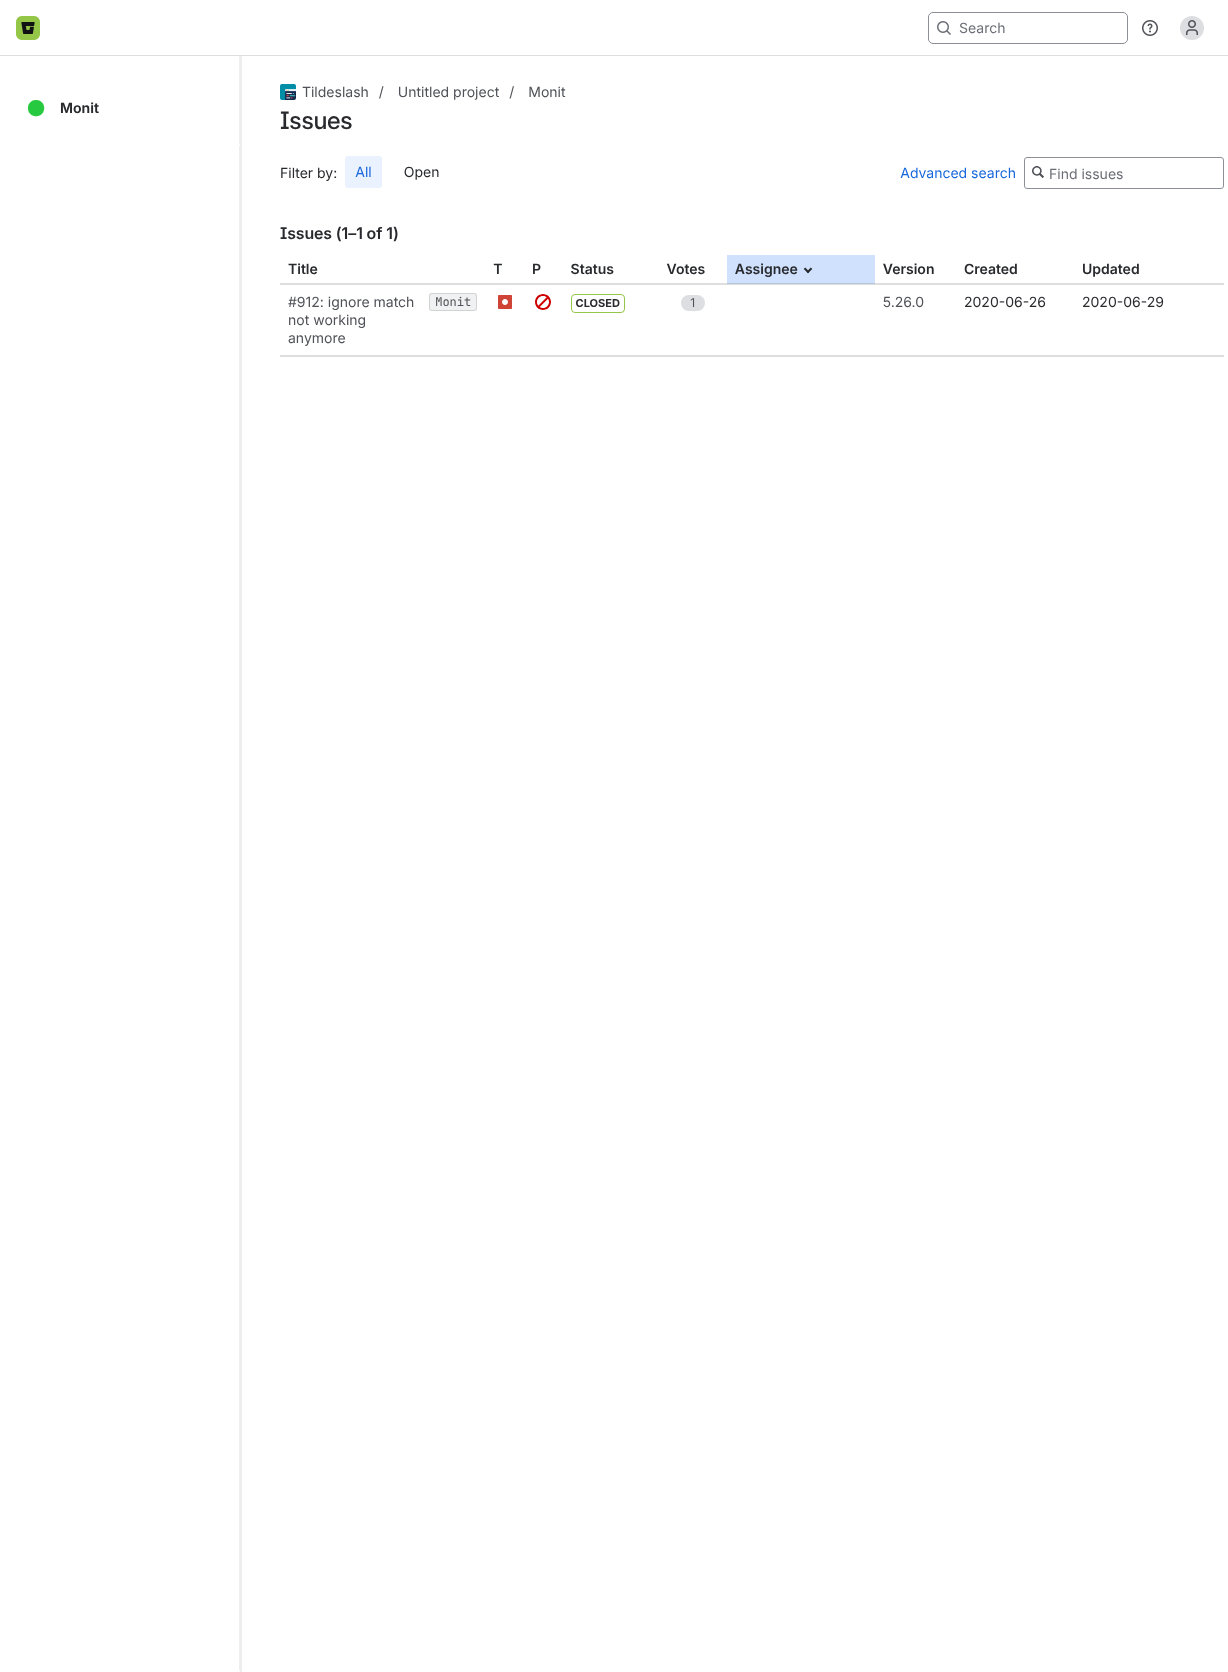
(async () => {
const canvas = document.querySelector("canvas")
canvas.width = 1228
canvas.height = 1672
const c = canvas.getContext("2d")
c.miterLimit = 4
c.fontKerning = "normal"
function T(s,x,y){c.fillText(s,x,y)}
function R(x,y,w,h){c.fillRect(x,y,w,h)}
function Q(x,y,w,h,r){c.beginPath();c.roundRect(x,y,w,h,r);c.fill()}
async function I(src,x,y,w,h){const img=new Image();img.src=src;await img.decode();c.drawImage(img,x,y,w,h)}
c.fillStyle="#fff"
R(0,0,1228,1672)
c.fillStyle="#dddedd"
R(0,55,1228,1)
await I("1.png",16,16,24,24)
c.beginPath()
c.roundRect(928.5,12.5,199,31,4.5)
c.strokeStyle="#8c8f97"
c.stroke()
await I("2.png",937,21,14,14)
c.font="14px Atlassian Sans"
c.fillStyle="#6b6e76"
T("Search",959,33)
await I("3.png",1142,20,16,16)
c.fillStyle="#dddee1"
c.beginPath()
c.arc(1192,28,12,0,7)
c.fill()
await I("4.png",1186,20,12,15)
await I("5.png",27,100,18,17)
c.font="bold 14px Atlassian Sans"
c.fillStyle="#292a2e"
T("Monit",60,113)
c.fillStyle="#eee"
R(239,56,3,1616)
c.fillStyle="#fff"
Q(0,144,240,2,1)
Q(0,1670,240,2,1)
await I("6.png",280,84,944,273)
})()
